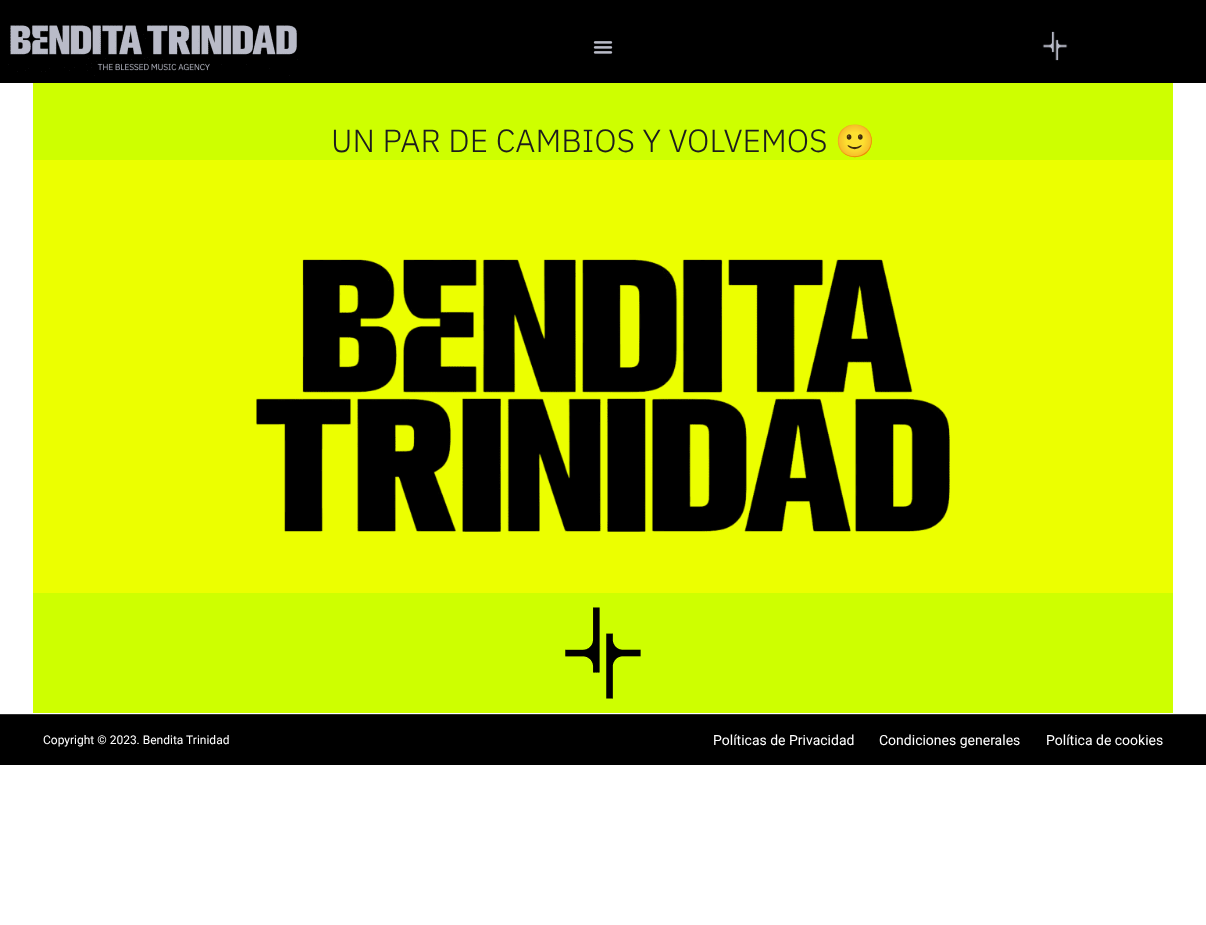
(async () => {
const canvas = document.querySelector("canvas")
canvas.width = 1206
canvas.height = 925
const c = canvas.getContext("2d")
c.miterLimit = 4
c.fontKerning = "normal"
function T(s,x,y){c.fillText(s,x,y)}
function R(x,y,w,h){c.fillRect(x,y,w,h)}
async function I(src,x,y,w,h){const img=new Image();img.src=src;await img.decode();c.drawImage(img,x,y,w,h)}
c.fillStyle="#fff"
R(0,0,1206,925)
c.fillStyle="#000"
R(0,0,1206,83)
await I("1.png",8,25,290,51)
await I("2.png",593,41,20,13)
await I("3.png",1042,31,26,30)
c.fillStyle="#ceff00"
R(33,83,1140,77)
c.font="300 32px Anuphan"
c.fillStyle="#1d1d1d"
T("UN PAR DE CAMBIOS Y VOLVEMOS",331,152)
c.font="32px Noto Color Emoji"
T("🙂",835,152)
c.fillStyle="#ecff00"
R(33,160,1140,433)
await I("4.png",256,259,694,273)
c.fillStyle="#ceff00"
R(33,593,1140,120)
await I("5.png",565,607,76,92)
c.fillStyle="#000"
R(0,715,1206,50)
c.fillStyle="#303030"
R(0,714,1206,1)
c.font="12px Roboto"
c.fillStyle="#fff"
T("Copyright © 2023. Bendita Trinidad",43,744)
c.font="14px Roboto"
T("Políticas de Privacidad",713,745)
T("Condiciones generales",879,745)
T("Política de cookies",1046,745)
})()
